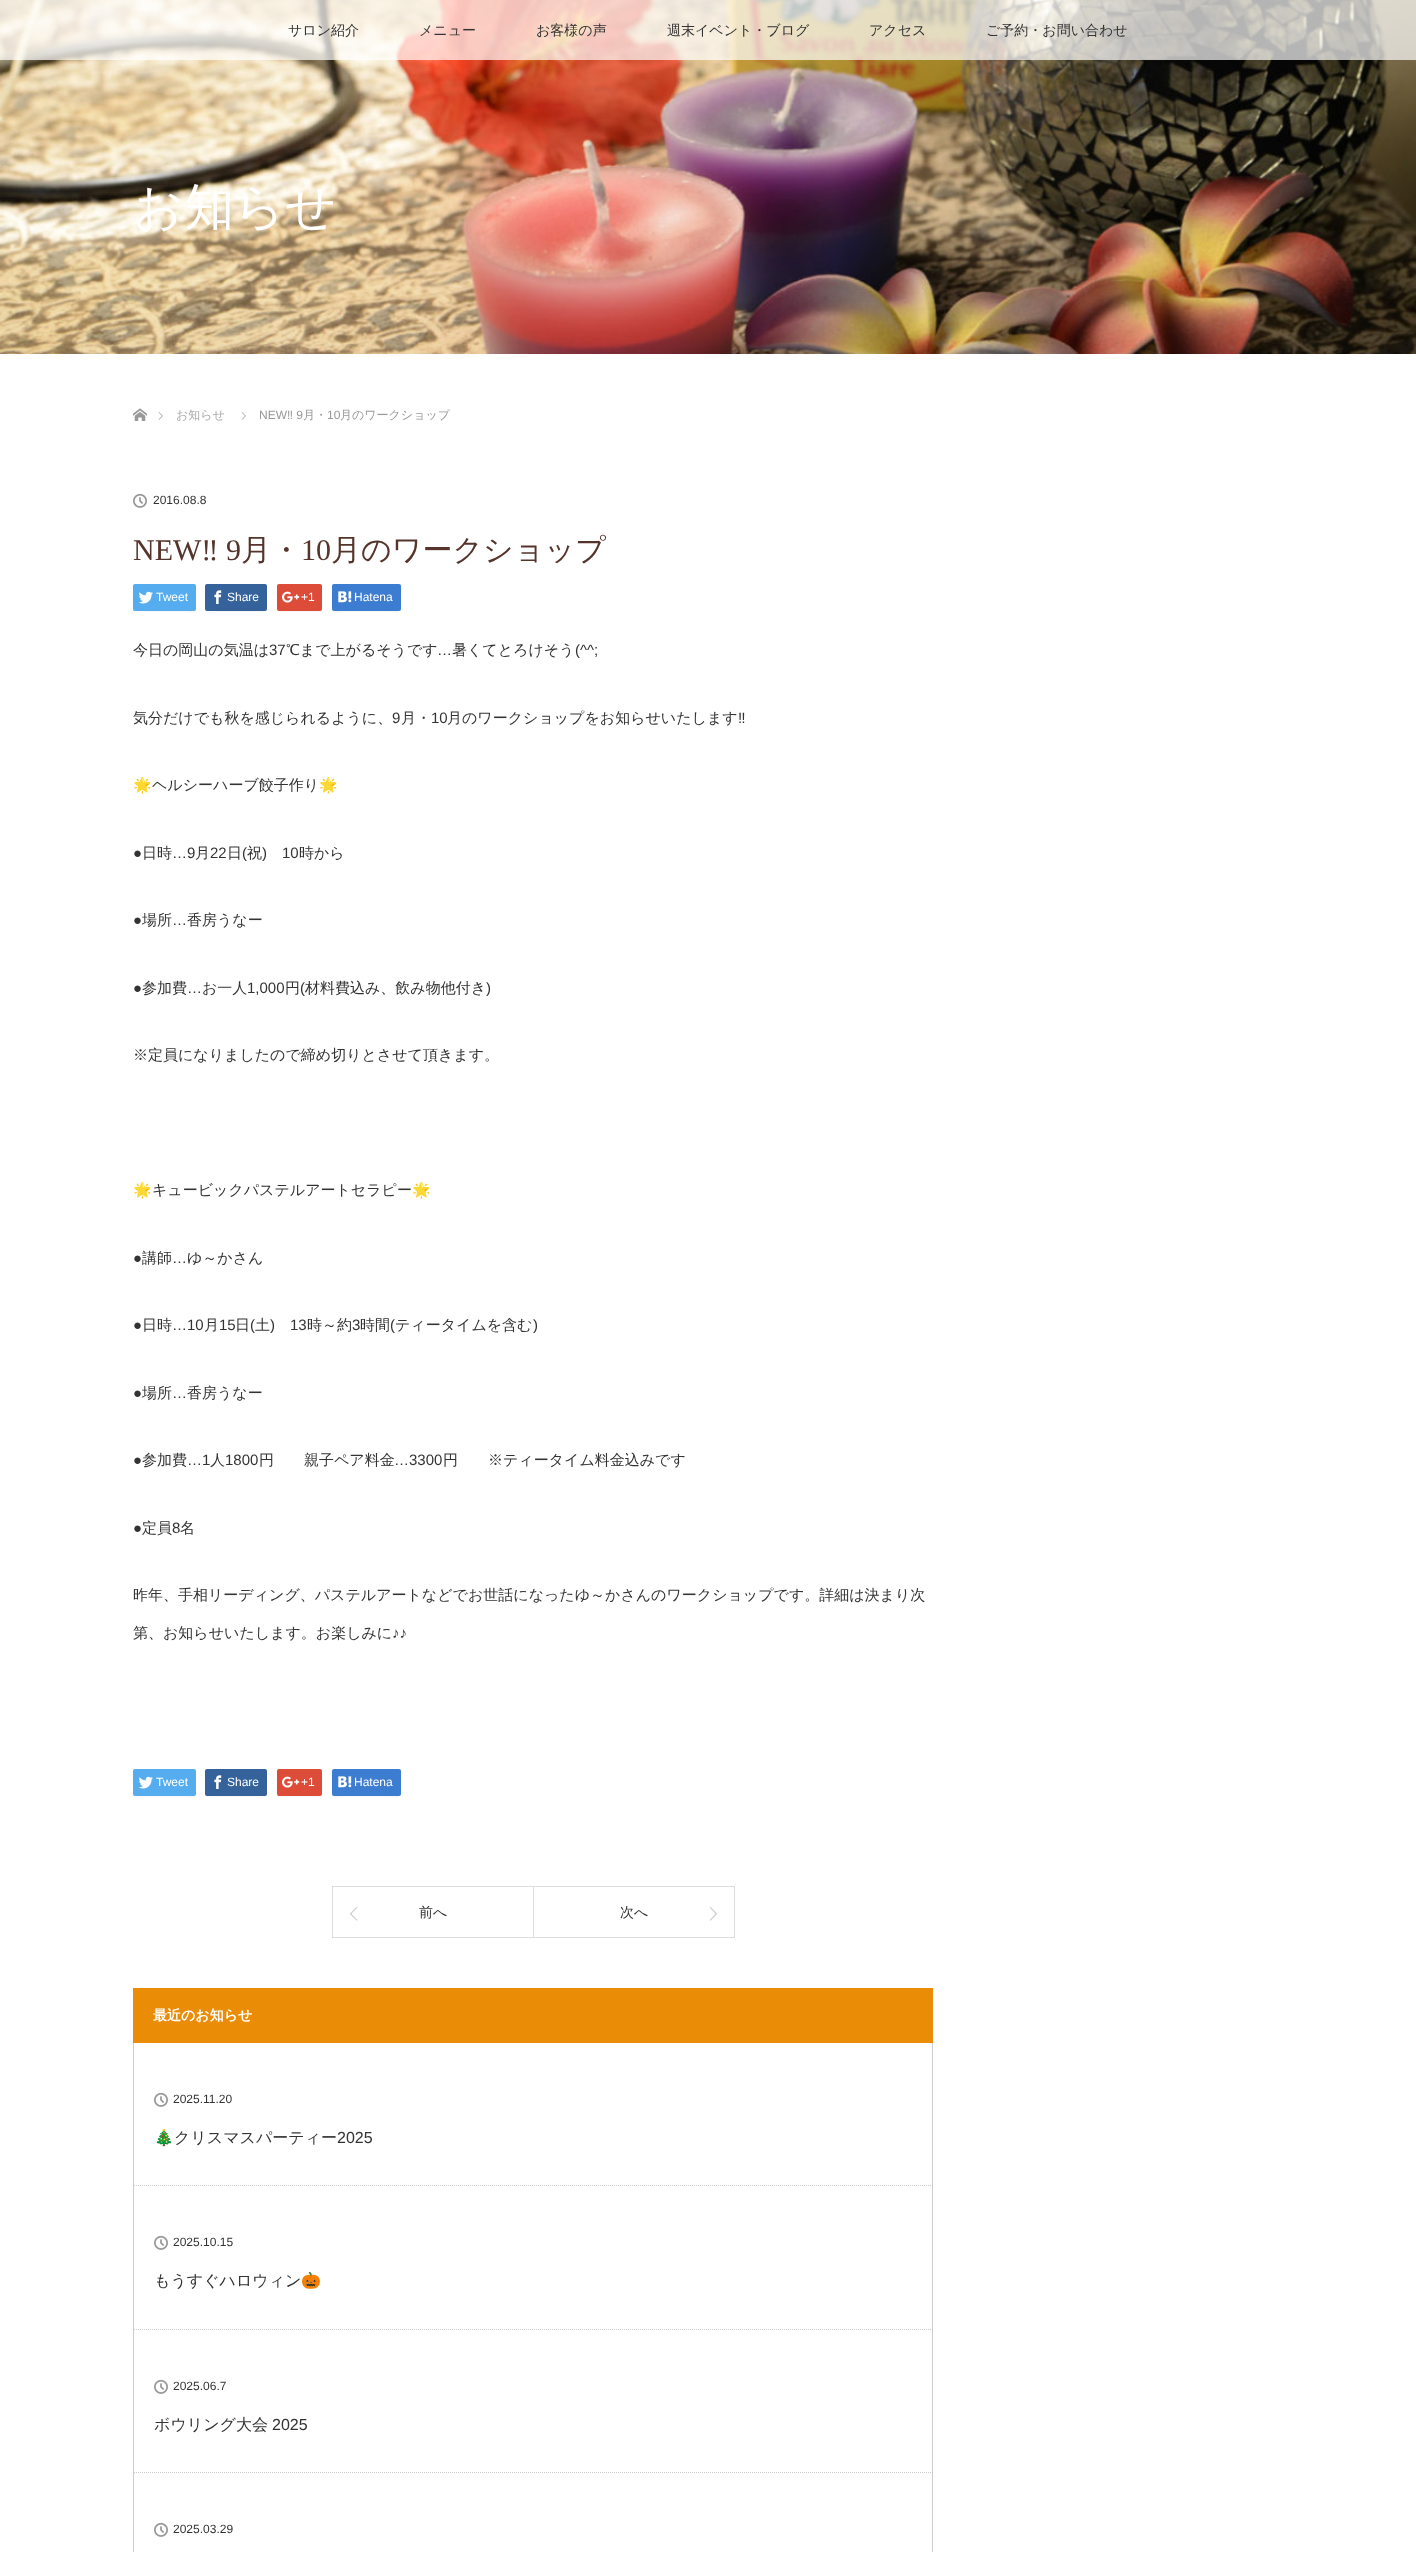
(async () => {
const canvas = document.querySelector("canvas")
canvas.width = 1416
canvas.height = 2552
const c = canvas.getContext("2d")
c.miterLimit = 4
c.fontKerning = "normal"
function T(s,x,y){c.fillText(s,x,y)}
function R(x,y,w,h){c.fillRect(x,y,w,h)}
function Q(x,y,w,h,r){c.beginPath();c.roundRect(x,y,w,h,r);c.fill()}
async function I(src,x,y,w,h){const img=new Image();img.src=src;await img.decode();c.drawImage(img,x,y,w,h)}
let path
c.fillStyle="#fff"
R(0,0,1416,2552)
await I("1.png",0,0,1416,354)
c.fillStyle="#ffffffb3"
R(0,0,1416,60)
c.font="500 14px WenQuanYi Zen Hei"
c.fillStyle="#333"
T("サロン紹介",288,35)
T("メニュー",419,35)
T("お客様の声",536,35)
T("週末イベント・ブログ",667,35)
T("アクセス",869,35)
T("ご予約・お問い合わせ",986,35)
c.font="500 50px WenQuanYi Zen Hei"
c.fillStyle="#fff"
T("お知らせ",133,224)
await I("2.png",133,408,14,13)
await I("3.png",158,412,5,8)
c.font="500 12px WenQuanYi Zen Hei"
c.fillStyle="#aaa"
T("お知らせ",176,419)
await I("3.png",241,412,5,8)
c.font="12px Liberation Sans"
c.fillStyle="#999"
T("NEW‼ 9",259,419)
c.font="500 12px WenQuanYi Zen Hei"
T("月・",303,419)
c.font="12px Liberation Sans"
T("10",327,419)
c.font="500 12px WenQuanYi Zen Hei"
T("月のワークショップ",340,419)
await I("4.png",133,493,14,15)
c.font="12px Liberation Sans"
c.fillStyle="#333"
T("2016.08.8",153,504)
c.font="30px Liberation Serif"
c.fillStyle="#55342b"
T("NEW‼ 9",133,560)
c.font="500 30px WenQuanYi Zen Hei"
T("月・",241,560)
c.font="30px Liberation Serif"
T("10",301,560)
c.font="500 30px WenQuanYi Zen Hei"
T("月のワークショップ",331,560)
c.fillStyle="#f7f7f7"
path = new Path2D("M133 609c0 6 8 3 12 3h39c4 0 12 3 12-3l-1 2h-50c-4 0-12 2-12-2z")
c.fill(path)
c.fillStyle="#55acee"
Q(133,584,63,27,2)
await I("5.png",138,591,15,13)
c.font="12px Liberation Sans"
c.fillStyle="#fff"
T("Tweet",156,601)
c.fillStyle="#f7f7f7"
path = new Path2D("M205 609c0 6 8 3 12 3h38c4 0 12 3 12-3l-1 2h-49c-4 0-12 2-12-2z")
c.fill(path)
c.fillStyle="#35629a"
Q(205,584,62,27,2)
await I("6.png",214,590,8,14)
c.fillStyle="#fff"
T("Share",227,601)
c.fillStyle="#f7f7f7"
path = new Path2D("M277 609c0 5 5 3 9 3h27c4 0 9 2 9-3c0 1-1 2-2 2h-41c-1 0-2-1-2-2z")
c.fill(path)
c.fillStyle="#dd4b39"
Q(277,584,45,27,2)
await I("7.png",282,591,18,12)
c.fillStyle="#fff"
T("+1",301,601)
c.fillStyle="#f7f7f7"
path = new Path2D("M332 609c0 6 9 3 13 3h43c4 0 13 3 13-3c0 1-1 2-2 2h-66z")
c.fill(path)
c.fillStyle="#3c7dd1"
Q(332,584,69,27,2)
await I("8.png",338,591,14,12)
c.fillStyle="#fff"
T("Hatena",354,601)
c.font="500 15px WenQuanYi Zen Hei"
c.fillStyle="#333"
T("今日の岡山の気温は",133,655)
c.font="15px Liberation Sans"
T("37",269,655)
c.font="500 15px WenQuanYi Zen Hei"
T("℃まで上がるそうです",286,655)
c.font="15px Liberation Sans"
T("…",437,655)
c.font="500 15px WenQuanYi Zen Hei"
T("暑くてとろけそう",452,655)
c.font="15px Liberation Sans"
T("(^^;",575,655)
c.font="500 15px WenQuanYi Zen Hei"
T("気分だけでも秋を感じられるように、",133,723)
c.font="15px Liberation Sans"
T("9",392,723)
c.font="500 15px WenQuanYi Zen Hei"
T("月・",401,723)
c.font="15px Liberation Sans"
T("10",431,723)
c.font="500 15px WenQuanYi Zen Hei"
T("月のワークショップをお知らせいたします",447,723)
c.font="15px Liberation Sans"
T("‼",738,723)
c.font="15px Noto Color Emoji"
T("🌟",133,790)
c.font="500 15px WenQuanYi Zen Hei"
T("ヘルシーハーブ餃子作り",152,790)
c.font="15px Noto Color Emoji"
T("🌟",319,790)
c.font="15px Liberation Sans"
T("●",133,858)
c.font="500 15px WenQuanYi Zen Hei"
T("日時",142,858)
c.font="15px Liberation Sans"
T("…9",172,858)
c.font="500 15px WenQuanYi Zen Hei"
T("月",195,858)
c.font="15px Liberation Sans"
T("22",210,858)
c.font="500 15px WenQuanYi Zen Hei"
T("日",227,858)
c.font="15px Liberation Sans"
T("(",242,858)
c.font="500 15px WenQuanYi Zen Hei"
T("祝",247,858)
c.font="15px Liberation Sans"
T(")",262,858)
T("10",282,858)
c.font="500 15px WenQuanYi Zen Hei"
T("時から",299,858)
c.font="15px Liberation Sans"
T("●",133,925)
c.font="500 15px WenQuanYi Zen Hei"
T("場所",142,925)
c.font="15px Liberation Sans"
T("…",172,925)
c.font="500 15px WenQuanYi Zen Hei"
T("香房うなー",187,925)
c.font="15px Liberation Sans"
T("●",133,993)
c.font="500 15px WenQuanYi Zen Hei"
T("参加費",142,993)
c.font="15px Liberation Sans"
T("…",187,993)
c.font="500 15px WenQuanYi Zen Hei"
T("お一人",202,993)
c.font="15px Liberation Sans"
T("1,000",247,993)
c.font="500 15px WenQuanYi Zen Hei"
T("円",285,993)
c.font="15px Liberation Sans"
T("(",300,993)
c.font="500 15px WenQuanYi Zen Hei"
T("材料費込み、飲み物他付き",305,993)
c.font="15px Liberation Sans"
T(")",486,993)
c.font="500 15px WenQuanYi Zen Hei"
T("※定員になりましたので締め切りとさせて頂きます。",133,1060)
c.font="15px Noto Color Emoji"
T("🌟",133,1195)
c.font="500 15px WenQuanYi Zen Hei"
T("キュービックパステルアートセラピー",152,1195)
c.font="15px Noto Color Emoji"
T("🌟",412,1195)
c.font="15px Liberation Sans"
T("●",133,1263)
c.font="500 15px WenQuanYi Zen Hei"
T("講師",142,1263)
c.font="15px Liberation Sans"
T("…",172,1263)
c.font="500 15px WenQuanYi Zen Hei"
T("ゆ～かさん",187,1263)
c.font="15px Liberation Sans"
T("●",133,1330)
c.font="500 15px WenQuanYi Zen Hei"
T("日時",142,1330)
c.font="15px Liberation Sans"
T("…10",172,1330)
c.font="500 15px WenQuanYi Zen Hei"
T("月",204,1330)
c.font="15px Liberation Sans"
T("15",219,1330)
c.font="500 15px WenQuanYi Zen Hei"
T("日",235,1330)
c.font="15px Liberation Sans"
T("(",250,1330)
c.font="500 15px WenQuanYi Zen Hei"
T("土",255,1330)
c.font="15px Liberation Sans"
T(")",270,1330)
T("13",290,1330)
c.font="500 15px WenQuanYi Zen Hei"
T("時～約",307,1330)
c.font="15px Liberation Sans"
T("3",352,1330)
c.font="500 15px WenQuanYi Zen Hei"
T("時間",360,1330)
c.font="15px Liberation Sans"
T("(",390,1330)
c.font="500 15px WenQuanYi Zen Hei"
T("ティータイムを含む",395,1330)
c.font="15px Liberation Sans"
T(")",533,1330)
T("●",133,1398)
c.font="500 15px WenQuanYi Zen Hei"
T("場所",142,1398)
c.font="15px Liberation Sans"
T("…",172,1398)
c.font="500 15px WenQuanYi Zen Hei"
T("香房うなー",187,1398)
c.font="15px Liberation Sans"
T("●",133,1465)
c.font="500 15px WenQuanYi Zen Hei"
T("参加費",142,1465)
c.font="15px Liberation Sans"
T("…1",187,1465)
c.font="500 15px WenQuanYi Zen Hei"
T("人",210,1465)
c.font="15px Liberation Sans"
T("1800",225,1465)
c.font="500 15px WenQuanYi Zen Hei"
T("円　　親子ペア料金",259,1465)
c.font="15px Liberation Sans"
T("…3300",394,1465)
c.font="500 15px WenQuanYi Zen Hei"
T("円　　※ティータイム料金込みです",443,1465)
c.font="15px Liberation Sans"
T("●",133,1533)
c.font="500 15px WenQuanYi Zen Hei"
T("定員",142,1533)
c.font="15px Liberation Sans"
T("8",172,1533)
c.font="500 15px WenQuanYi Zen Hei"
T("名",180,1533)
T("昨年、手相リーディング、パステルアートなどでお世話になったゆ～かさんのワークショップです。詳細は決まり次",133,1600)
T("第、お知らせいたします。お楽しみに",133,1638)
c.font="15px Liberation Sans"
T("♪♪",392,1638)
c.fillStyle="#f7f7f7"
path = new Path2D("M133 1794c0 6 8 3 12 3h39c4 0 12 3 12-3l-1 2h-50c-4 0-12 2-12-2z")
c.fill(path)
c.fillStyle="#55acee"
Q(133,1769,63,27,2)
await I("5.png",138,1776,15,13)
c.font="12px Liberation Sans"
c.fillStyle="#fff"
T("Tweet",156,1786)
c.fillStyle="#f7f7f7"
path = new Path2D("M205 1794c0 6 8 3 12 3h38c4 0 12 3 12-3l-1 2h-49c-4 0-12 2-12-2z")
c.fill(path)
c.fillStyle="#35629a"
Q(205,1769,62,27,2)
await I("6.png",214,1775,8,14)
c.fillStyle="#fff"
T("Share",227,1786)
c.fillStyle="#f7f7f7"
path = new Path2D("M277 1794c0 5 5 3 9 3h27c4 0 9 2 9-3c0 1-1 2-2 2h-41c-1 0-2-1-2-2z")
c.fill(path)
c.fillStyle="#dd4b39"
Q(277,1769,45,27,2)
await I("7.png",282,1776,18,12)
c.fillStyle="#fff"
T("+1",301,1786)
c.fillStyle="#f7f7f7"
path = new Path2D("M332 1794c0 6 9 3 13 3h43c4 0 13 3 13-3c0 1-1 2-2 2h-66z")
c.fill(path)
c.fillStyle="#3c7dd1"
Q(332,1769,69,27,2)
await I("8.png",338,1776,14,12)
c.fillStyle="#fff"
T("Hatena",354,1786)
c.strokeStyle="#ddd"
c.strokeRect(332.5,1886.5,201,51)
await I("9.png",350,1907,8,14)
c.font="500 14px WenQuanYi Zen Hei"
c.fillStyle="#333"
T("前へ",419,1917)
c.strokeRect(533.5,1886.5,201,51)
T("次へ",620,1917)
await I("10.png",709,1907,8,14)
c.fillStyle="#ea8c06"
R(133,1988,800,55)
c.font="bold 14px WenQuanYi Zen Hei"
c.fillStyle="#fff"
T("最近のお知らせ",153,2020)
c.fillStyle="#ccc"
R(932,2043,1,509)
R(133,2043,1,509)
path = new Path2D("M134 2185.5h798")
c.strokeStyle="#ccc"
c.setLineDash([1,1])
c.stroke(path)
await I("4.png",154,2092,14,15)
c.font="12px Liberation Sans"
c.fillStyle="#333"
T("2025.11.20",173,2103)
c.font="16px Noto Color Emoji"
T("🎄",154,2143)
c.font="500 16px WenQuanYi Zen Hei"
T("クリスマスパーティー",174,2143)
c.font="16px Liberation Sans"
T("2025",337,2143)
path = new Path2D("M134 2329.5h798")
c.stroke(path)
await I("4.png",154,2235,14,15)
c.font="12px Liberation Sans"
T("2025.10.15",173,2246)
c.font="500 16px WenQuanYi Zen Hei"
T("もうすぐハロウィン",154,2286)
c.font="16px Noto Color Emoji"
T("🎃",301,2286)
path = new Path2D("M134 2472.5h798")
c.stroke(path)
await I("4.png",154,2379,14,15)
c.font="12px Liberation Sans"
T("2025.06.7",173,2390)
c.font="500 16px WenQuanYi Zen Hei"
T("ボウリング大会",154,2430)
c.font="16px Liberation Sans"
T("2025",272,2430)
await I("4.png",154,2522,14,15)
c.font="12px Liberation Sans"
T("2025.03.29",173,2533)
})()
